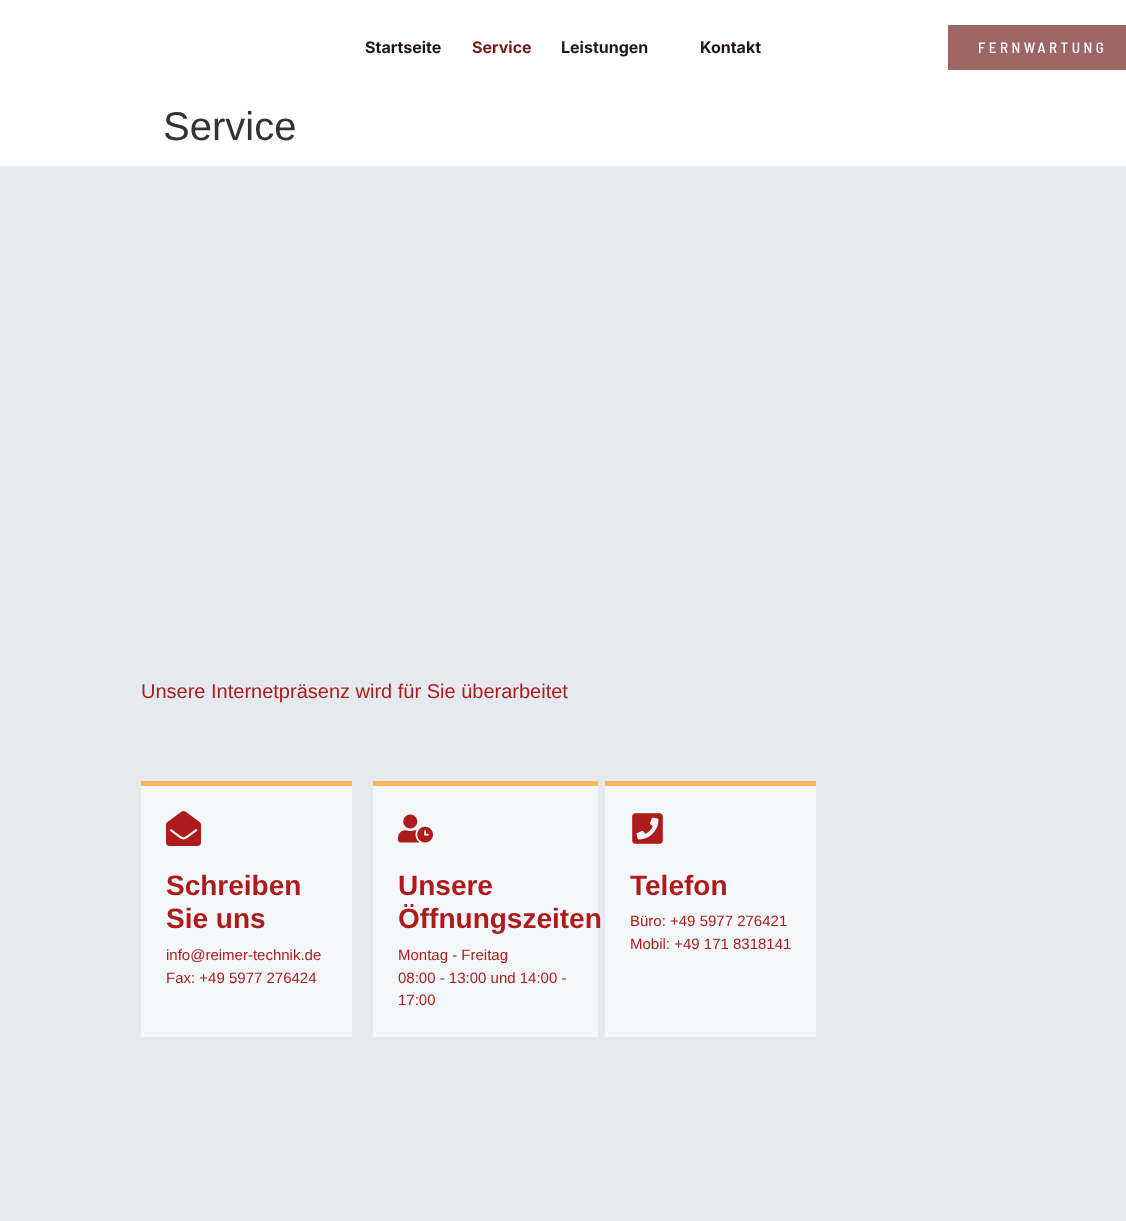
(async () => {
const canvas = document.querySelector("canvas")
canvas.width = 1126
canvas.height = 1221
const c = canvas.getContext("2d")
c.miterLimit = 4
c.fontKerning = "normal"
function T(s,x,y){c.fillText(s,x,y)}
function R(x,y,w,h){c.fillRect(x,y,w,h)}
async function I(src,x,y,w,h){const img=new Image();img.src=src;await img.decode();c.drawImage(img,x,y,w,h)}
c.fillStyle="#fff"
R(0,0,1126,1221)
c.font="bold 16px Inter"
c.fillStyle="#221515"
T("Startseite",365,53)
c.fillStyle="#711c1c"
T("Service",472,53)
c.fillStyle="#221515"
T("Leistungen",561,53)
T("Kontakt",700,53)
c.fillStyle="#9e6565"
R(948,25,178,45)
c.letterSpacing="3.5px"
c.font="500 15px Barlow Semi Condensed"
c.fillStyle="#fff"
T("FERNWARTUNG",978,53)
c.letterSpacing="0px"
c.font="40px Liberation Sans"
c.fillStyle="#333"
T("Service",163,140)
c.fillStyle="#e4eaef"
R(0,166,1126,1055)
c.font="20px Liberation Sans"
c.fillStyle="#ae1b1b"
T("Unsere Internetpräsenz wird für Sie überarbeitet",141,698)
c.fillStyle="#f4f7f9"
R(141,786,211,251)
c.fillStyle="#fdb757"
R(141,781,211,5)
await I("1.png",166,811,35,35)
c.font="bold 28px Liberation Sans"
c.fillStyle="#ae1b1b"
T("Schreiben",166,895)
T("Sie uns",166,928)
c.font="15px Liberation Sans"
T("info@reimer-technik.de",166,960)
T("Fax: +49 5977 276424",166,983)
c.fillStyle="#f4f7f9"
R(373,786,225,251)
c.fillStyle="#fdb757"
R(373,781,225,5)
await I("2.png",398,814,35,29)
c.font="bold 28px Liberation Sans"
c.fillStyle="#ae1b1b"
T("Unsere",398,895)
T("Öffnungszeiten",398,928)
c.font="15px Liberation Sans"
T("Montag - Freitag",398,960)
T("08:00 - 13:00 und 14:00 -",398,983)
T("17:00",398,1005)
c.fillStyle="#f4f7f9"
R(605,786,211,251)
c.fillStyle="#fdb757"
R(605,781,211,5)
await I("3.png",632,813,31,31)
c.font="bold 28px Liberation Sans"
c.fillStyle="#ae1b1b"
T("Telefon",630,895)
c.font="15px Liberation Sans"
T("Büro: +49 5977 276421",630,926)
T("Mobil: +49 171 8318141",630,949)
})()
